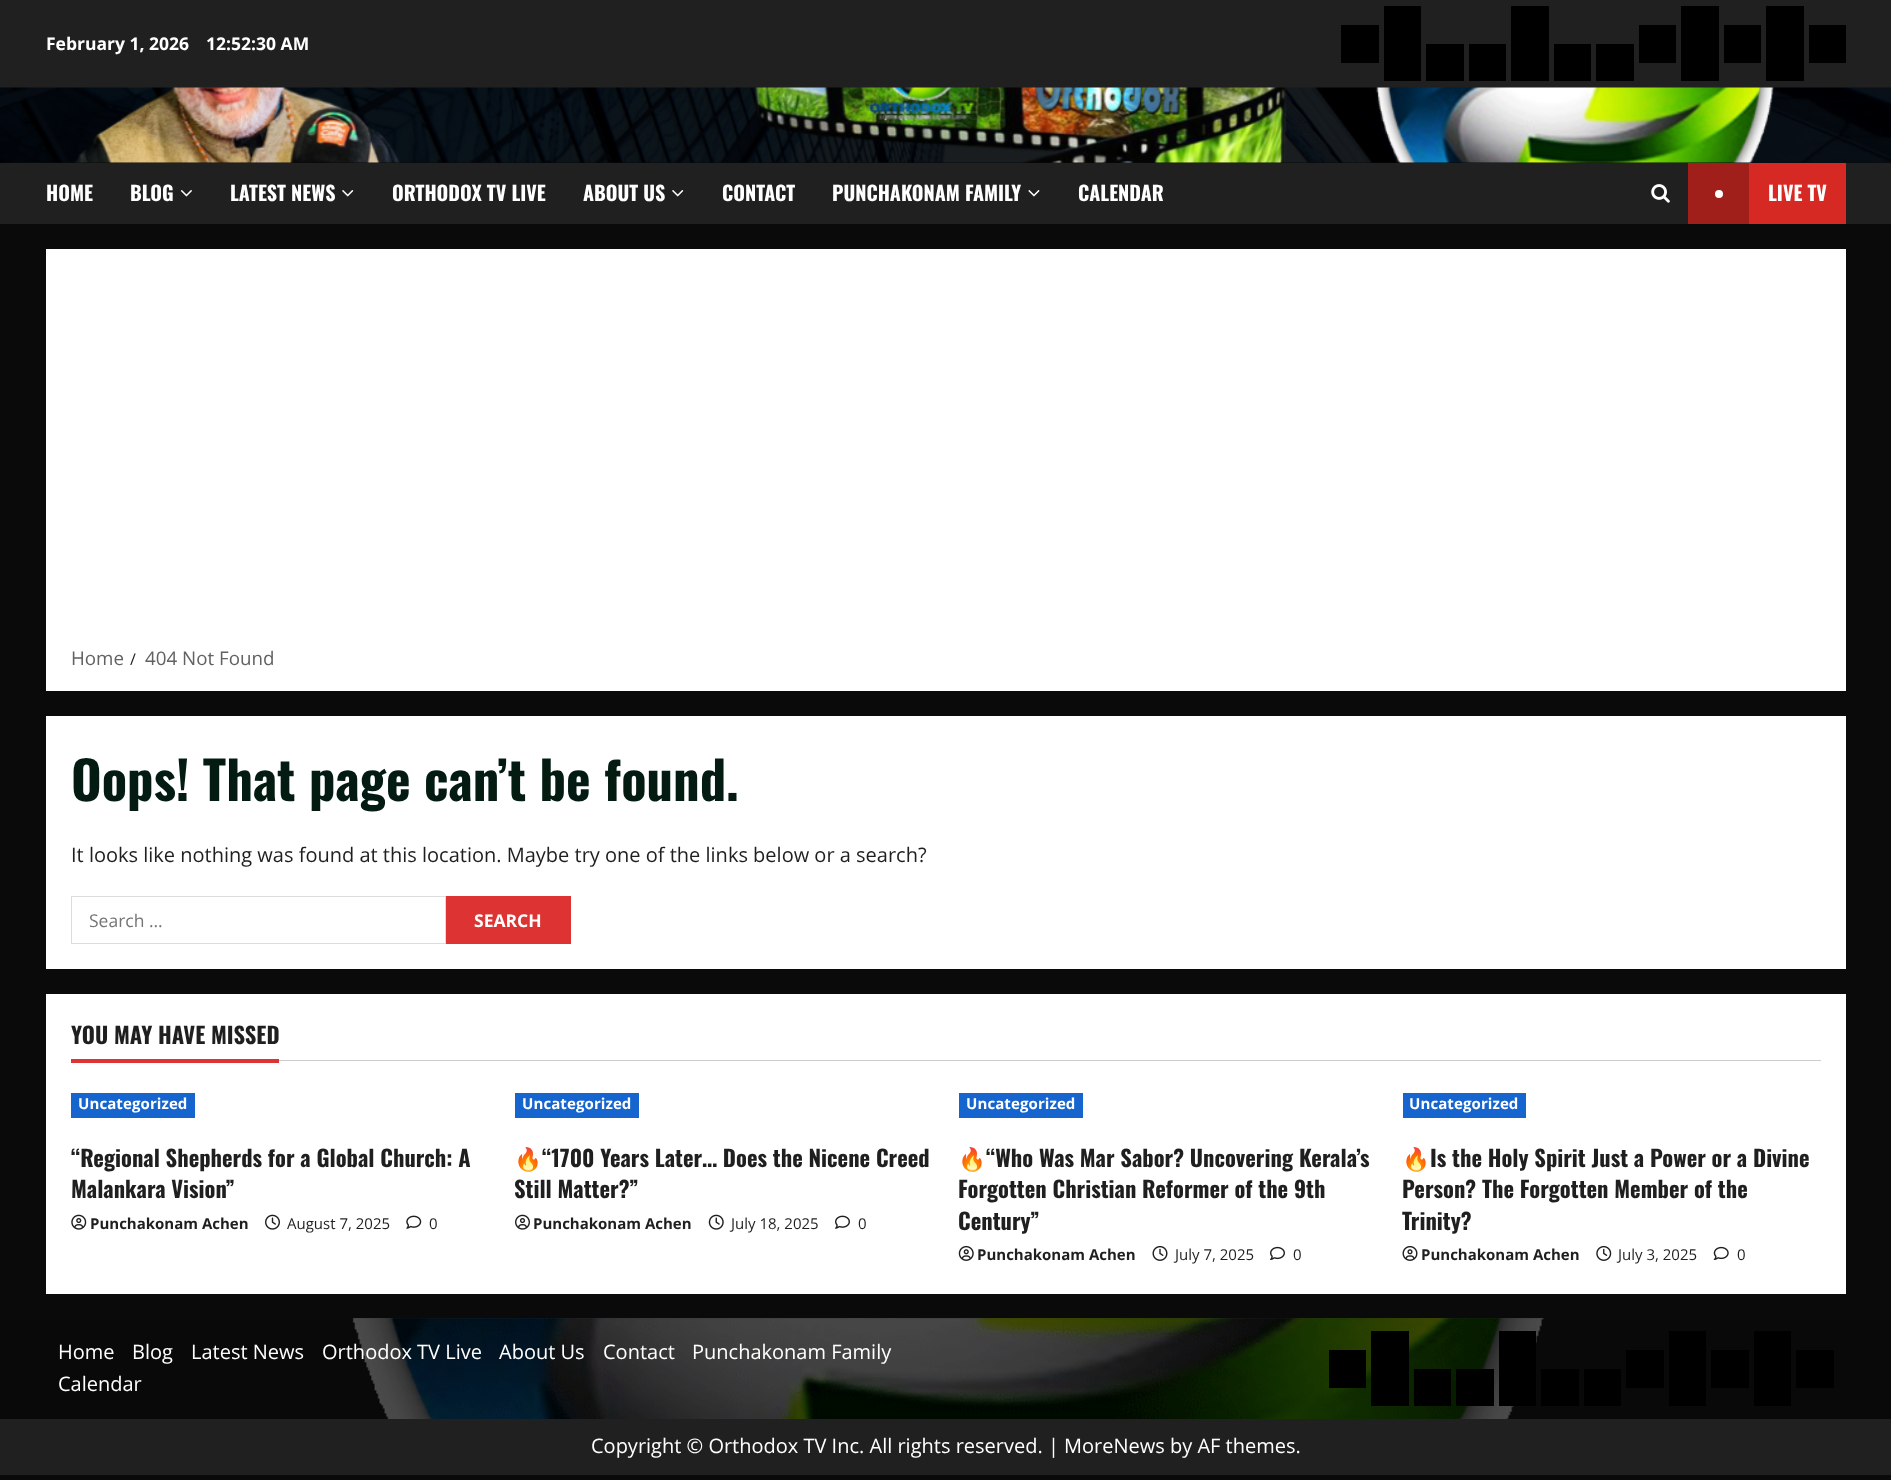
(async () => {
const canvas = document.querySelector("canvas")
canvas.width = 1891
canvas.height = 1480
const c = canvas.getContext("2d")
c.miterLimit = 4
c.fontKerning = "normal"
function T(s,x,y){c.fillText(s,x,y)}
function R(x,y,w,h){c.fillRect(x,y,w,h)}
async function I(src,x,y,w,h){const img=new Image();img.src=src;await img.decode();c.drawImage(img,x,y,w,h)}
c.fillStyle="#0a0a0a"
R(0,0,1891,1480)
c.fillStyle="#202020"
R(0,0,1891,88)
c.font="bold 17.5px Open Sans"
c.fillStyle="#fff"
T("February 1, 2026",46,50)
T("12:52:30 AM",206,50)
c.fillStyle="#000"
R(1341,25,38,38)
R(1384,6,37,75)
R(1426,44,38,37)
R(1469,44,37,37)
R(1511,6,38,75)
R(1554,44,37,37)
R(1596,44,38,37)
R(1639,25,37,38)
R(1681,6,38,75)
R(1724,25,37,38)
R(1766,6,38,75)
R(1809,25,37,38)
await I("1.png",0,87,1891,76)
c.fillStyle="#202020"
R(0,163,1891,61)
c.font="bold 20px Oswald"
c.fillStyle="#fff"
T("HOME",46,201)
T("BLOG",130,201)
await I("2.png",180,190,12,7)
T("LATEST NEWS",230,201)
await I("3.png",342,190,12,7)
T("ORTHODOX TV LIVE",392,201)
T("ABOUT US",583,201)
await I("3.png",672,190,12,7)
T("CONTACT",722,201)
T("PUNCHAKONAM FAMILY",832,201)
await I("4.png",1028,190,12,7)
T("CALENDAR",1078,201)
await I("5.png",1651,184,19,19)
c.fillStyle="#d72924"
R(1749,163,97,61)
c.fillStyle="#a11f1b"
R(1688,163,61,61)
c.fillStyle="#fff"
c.beginPath()
c.arc(1719,194,4,0,7)
c.fill()
T("LIVE TV",1768,201)
R(46,249,1800,442)
c.font="18.75px Open Sans"
c.fillStyle="#626262"
T("Home",71,665)
c.font="16px Open Sans"
c.fillStyle="#1f1f1f"
T("/",130,665)
c.font="18.75px Open Sans"
c.fillStyle="#626262"
T("404 Not Found",145,665)
c.fillStyle="#fff"
R(46,716,1800,253)
c.font="bold 52.5px Oswald"
c.fillStyle="#031b11"
T("Oops! That page can’t be found.",71,801)
c.font="20px Open Sans"
c.fillStyle="#1f1f1f"
T("It looks like nothing was found at this location. Maybe try one of the links below or a search?",71,862)
c.strokeStyle="#dcdcdc"
c.strokeRect(71.5,896.5,374,47)
c.font="17.5px Open Sans"
c.fillStyle="#757575"
T("Search …",89,927)
c.fillStyle="#d33"
R(446,896,125,48)
c.font="bold 17.5px Open Sans"
c.fillStyle="#fff"
T("SEARCH",474,927)
R(46,994,1800,300)
c.fillStyle="#ccc"
R(279,1060,1542,1)
c.font="bold 22.5px Oswald"
c.fillStyle="#1f1f1f"
T("YOU MAY HAVE MISSED",71,1044)
c.fillStyle="#d33"
R(71,1059,208,4)
c.fillStyle="#1665cf"
R(71,1093,124,25)
c.letterSpacing="0.1px"
c.font="bold 15px Open Sans"
c.fillStyle="#fff"
T("Uncategorized",78,1109)
c.letterSpacing="0px"
c.font="bold 22.5px Oswald"
c.fillStyle="#1f1f1f"
T("“Regional Shepherds for a Global Church: A",71,1167)
T("Malankara Vision”",71,1198)
await I("6.png",71,1214,16,16)
c.font="bold 15px Open Sans"
T("Punchakonam Achen",90,1229)
await I("7.png",265,1214,15,16)
c.font="15px Open Sans"
T("August 7, 2025",287,1229)
await I("8.png",406,1215,16,14)
T("0",429,1229)
c.fillStyle="#1665cf"
R(515,1093,124,25)
c.letterSpacing="0.1px"
c.font="bold 15px Open Sans"
c.fillStyle="#fff"
T("Uncategorized",522,1109)
c.letterSpacing="0px"
c.font="bold 22.5px Noto Color Emoji"
c.fillStyle="#1f1f1f"
T("🔥",514,1167)
c.font="bold 22.5px Oswald"
T("“1700 Years Later… Does the Nicene Creed",542,1167)
T("Still Matter?”",514,1198)
await I("9.png",515,1214,15,16)
c.font="bold 15px Open Sans"
T("Punchakonam Achen",533,1229)
await I("10.png",708,1214,16,16)
c.font="15px Open Sans"
T("July 18, 2025",731,1229)
await I("11.png",835,1215,15,14)
T("0",858,1229)
c.fillStyle="#1665cf"
R(959,1093,124,25)
c.letterSpacing="0.1px"
c.font="bold 15px Open Sans"
c.fillStyle="#fff"
T("Uncategorized",966,1109)
c.letterSpacing="0px"
c.font="bold 22.5px Noto Color Emoji"
c.fillStyle="#1f1f1f"
T("🔥",958,1167)
c.font="bold 22.5px Oswald"
T("“Who Was Mar Sabor? Uncovering Kerala’s",986,1167)
T("Forgotten Christian Reformer of the 9th",958,1198)
T("Century”",958,1230)
await I("12.png",958,1245,16,16)
c.font="bold 15px Open Sans"
T("Punchakonam Achen",977,1260)
await I("13.png",1152,1246,16,15)
c.font="15px Open Sans"
T("July 7, 2025",1175,1260)
await I("14.png",1270,1246,15,14)
T("0",1293,1260)
c.fillStyle="#1665cf"
R(1403,1093,123,25)
c.letterSpacing="0.1px"
c.font="bold 15px Open Sans"
c.fillStyle="#fff"
T("Uncategorized",1409,1109)
c.letterSpacing="0px"
c.font="bold 22.5px Noto Color Emoji"
c.fillStyle="#1f1f1f"
T("🔥",1402,1167)
c.font="bold 22.5px Oswald"
T("Is the Holy Spirit Just a Power or a Divine",1430,1167)
T("Person? The Forgotten Member of the",1402,1198)
T("Trinity?",1402,1230)
await I("15.png",1402,1246,16,15)
c.font="bold 15px Open Sans"
T("Punchakonam Achen",1421,1260)
await I("16.png",1596,1245,16,16)
c.font="15px Open Sans"
T("July 3, 2025",1618,1260)
await I("17.png",1713,1246,16,14)
T("0",1737,1260)
c.fillStyle="#0e0e0e"
R(0,1319,1891,100)
await I("18.png",352,1318,1192,101)
c.fillStyle="#00000059"
R(0,1319,1891,100)
c.font="20px Open Sans"
c.fillStyle="#fff"
T("Home",58,1359)
T("Blog",132,1359)
T("Latest News",191,1359)
T("Orthodox TV Live",322,1359)
T("About Us",499,1359)
T("Contact",603,1359)
T("Punchakonam Family",692,1359)
T("Calendar",58,1391)
c.fillStyle="#000"
R(1329,1350,37,38)
R(1371,1331,38,75)
R(1414,1369,37,37)
R(1456,1369,38,37)
R(1499,1331,37,75)
R(1541,1369,38,37)
R(1584,1369,37,37)
R(1626,1350,38,38)
R(1669,1331,37,75)
R(1711,1350,38,38)
R(1754,1331,37,75)
R(1796,1350,38,38)
c.fillStyle="#202020"
R(0,1419,1891,56)
c.fillStyle="#fff"
T("Copyright © Orthodox TV Inc. All rights reserved. | MoreNews by AF themes.",591,1453)
})()
